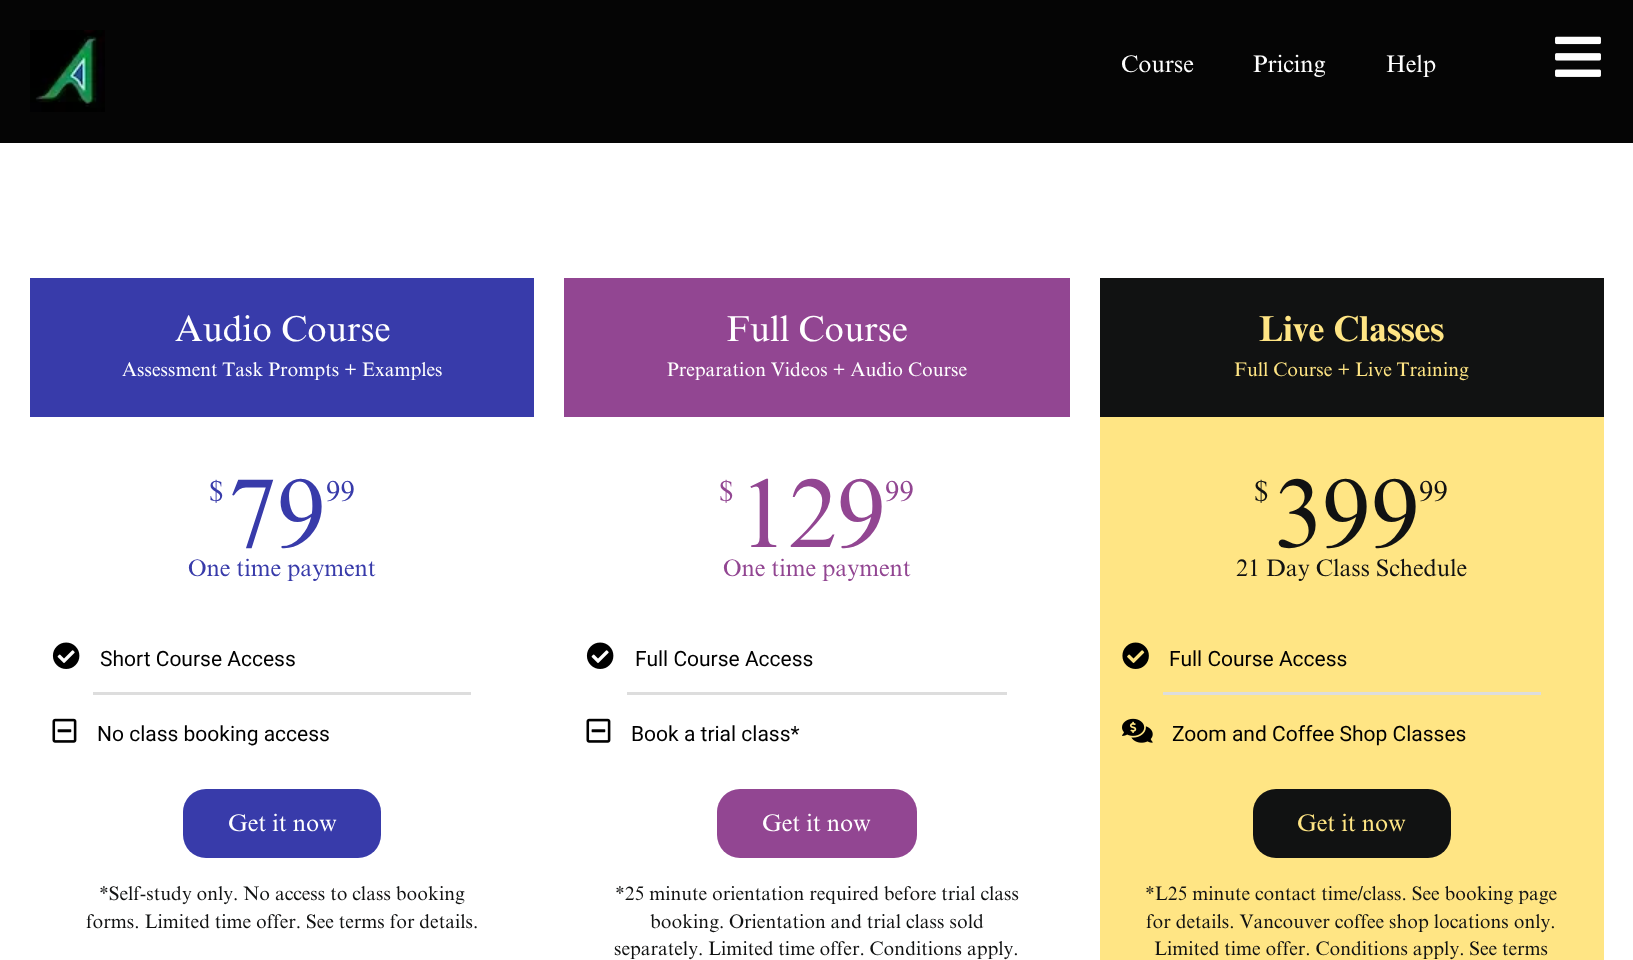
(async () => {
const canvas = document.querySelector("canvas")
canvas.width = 1633
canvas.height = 960
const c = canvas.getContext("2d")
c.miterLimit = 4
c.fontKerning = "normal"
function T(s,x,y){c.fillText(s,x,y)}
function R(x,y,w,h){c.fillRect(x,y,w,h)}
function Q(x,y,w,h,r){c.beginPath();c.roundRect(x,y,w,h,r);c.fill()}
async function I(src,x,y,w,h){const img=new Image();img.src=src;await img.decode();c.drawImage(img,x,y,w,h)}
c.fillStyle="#fff"
R(0,0,1633,960)
c.fillStyle="#050505"
R(0,0,1633,143)
await I("1.png",30,30,75,82)
c.font="24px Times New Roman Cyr"
c.fillStyle="#fff"
T("Course",1121,72)
T("Pricing",1253,72)
T("Help",1386,72)
await I("2.png",1555,36,46,41)
c.fillStyle="#383baa"
R(30,278,504,139)
c.font="36px Times New Roman Cyr"
c.fillStyle="#fff"
T("Audio Course",175,341)
c.font="19.5px Times New Roman Cyr"
T("Assessment Task Prompts + Examples",122,376)
c.font="29px Times New Roman Cyr"
c.fillStyle="#383baa"
T("$",209,501)
c.font="98px Times New Roman Cyr"
T("79",228,547)
c.font="29px Times New Roman Cyr"
T("99",326,501)
c.font="24px Times New Roman Cyr"
T("One time payment",188,576)
await I("3.png",52,642,28,27)
c.font="21px Roboto"
c.fillStyle="#000"
T("Short Course Access",100,666)
c.fillStyle="#ddd"
R(93,692,378,3)
await I("4.png",52,718,25,25)
c.fillStyle="#000"
T("No class booking access",97,741)
c.fillStyle="#383baa"
Q(183,789,198,69,23)
c.font="24px Times New Roman Cyr"
c.fillStyle="#fff"
T("Get it now",228,831)
c.font="19.5px Times New Roman Cyr"
c.fillStyle="#111212"
T("*Self-study only. No access to class booking",99,900)
T("forms. Limited time offer. See terms for details.",86,928)
c.fillStyle="#924692"
R(564,278,506,139)
c.font="36px Times New Roman Cyr"
c.fillStyle="#fff"
T("Full Course",726,341)
c.font="19.5px Times New Roman Cyr"
T("Preparation Videos + Audio Course",667,376)
c.font="29px Times New Roman Cyr"
c.fillStyle="#924692"
T("$",719,501)
c.font="98px Times New Roman Cyr"
T("129",739,547)
c.font="29px Times New Roman Cyr"
T("99",885,501)
c.font="24px Times New Roman Cyr"
T("One time payment",723,576)
await I("3.png",586,642,28,27)
c.font="21px Roboto"
c.fillStyle="#000"
T("Full Course Access",635,666)
c.fillStyle="#ddd"
R(627,692,380,3)
await I("4.png",586,718,25,25)
c.fillStyle="#000"
T("Book a trial class*",631,741)
c.fillStyle="#924692"
Q(717,789,200,69,23)
c.font="24px Times New Roman Cyr"
c.fillStyle="#fff"
T("Get it now",762,831)
c.font="19.5px Times New Roman Cyr"
c.fillStyle="#111212"
T("*25 minute orientation required before trial class",615,900)
T("booking. Orientation and trial class sold",650,928)
T("separately. Limited time offer. Conditions apply.",614,955)
R(1100,278,504,139)
c.font="bold 36px Times New Roman Cyr"
c.fillStyle="#ffe584"
T("Live Classes",1259,341)
c.font="19.5px Times New Roman Cyr"
T("Full Course + Live Training",1234,376)
R(1100,417,504,543)
c.font="29px Times New Roman Cyr"
c.fillStyle="#111212"
T("$",1254,501)
c.font="98px Times New Roman Cyr"
T("399",1273,547)
c.font="29px Times New Roman Cyr"
T("99",1419,501)
c.font="24px Times New Roman Cyr"
T("21 Day Class Schedule",1236,576)
await I("5.png",1122,642,27,27)
c.font="21px Roboto"
c.fillStyle="#000"
T("Full Course Access",1169,666)
c.fillStyle="#ddd"
R(1163,692,378,3)
await I("6.png",1122,718,31,25)
c.fillStyle="#000"
T("Zoom and Coffee Shop Classes",1172,741)
c.fillStyle="#111212"
Q(1253,789,198,69,23)
c.font="24px Times New Roman Cyr"
c.fillStyle="#ffe584"
T("Get it now",1297,831)
c.font="19.5px Times New Roman Cyr"
c.fillStyle="#111212"
T("*L25 minute contact time/class. See booking page",1145,900)
T("for details. Vancouver coffee shop locations only.",1146,928)
T("Limited time offer. Conditions apply. See terms",1154,955)
})()
